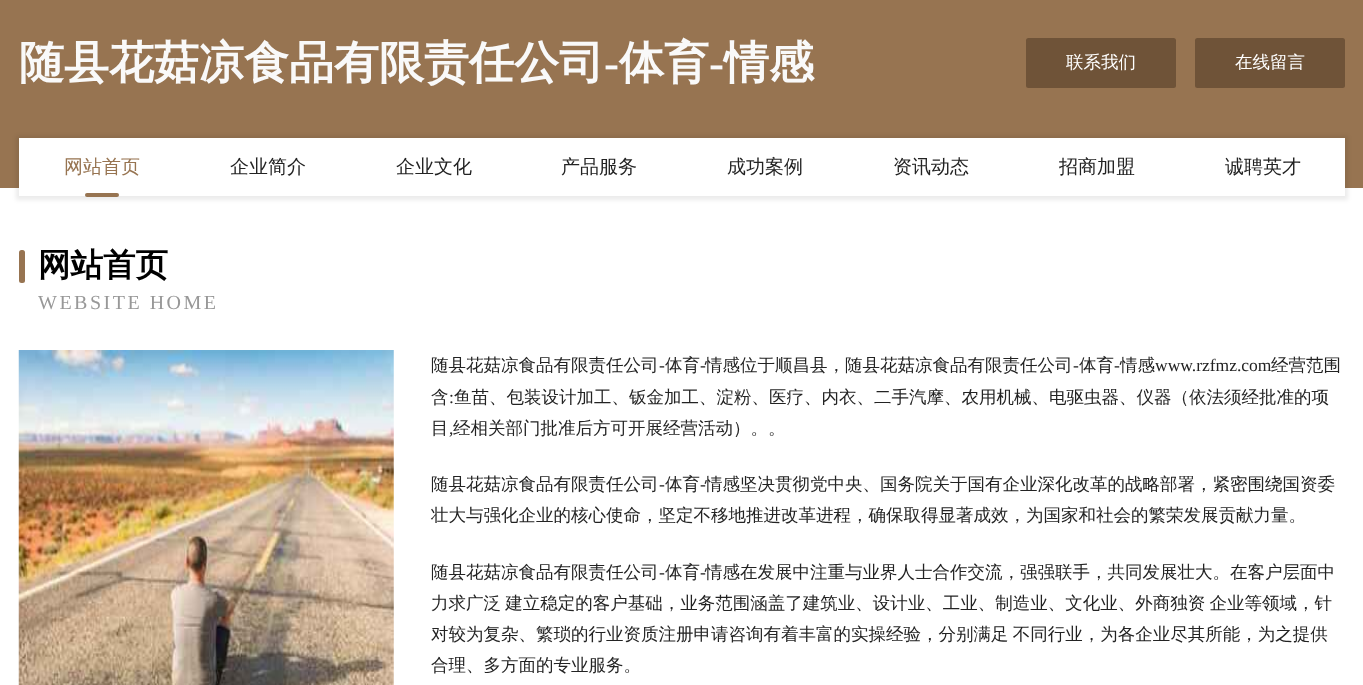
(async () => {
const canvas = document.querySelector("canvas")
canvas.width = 1363
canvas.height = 685
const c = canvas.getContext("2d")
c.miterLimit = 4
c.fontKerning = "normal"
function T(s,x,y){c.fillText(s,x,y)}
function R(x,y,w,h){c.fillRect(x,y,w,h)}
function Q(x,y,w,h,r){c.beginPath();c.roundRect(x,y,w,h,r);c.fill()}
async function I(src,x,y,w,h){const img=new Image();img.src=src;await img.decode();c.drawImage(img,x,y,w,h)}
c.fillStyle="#fff"
R(0,0,1363,685)
c.fillStyle="#977451"
R(0,0,1363,188)
c.font="bold 45px WenQuanYi Zen Hei"
c.fillStyle="#f9f9f9"
T("随县花菇凉食品有限责任公司",19,78)
c.font="bold 45px Liberation Serif"
T("-",604,78)
c.font="bold 45px WenQuanYi Zen Hei"
T("体育",619,78)
c.font="bold 45px Liberation Serif"
T("-",709,78)
c.font="bold 45px WenQuanYi Zen Hei"
T("情感",724,78)
c.fillStyle="#6f5338"
Q(1026,38,150,50,2.5)
c.font="500 17.5px WenQuanYi Zen Hei"
c.fillStyle="#fff"
T("联系我们",1066,68)
c.fillStyle="#6f5338"
Q(1195,38,150,50,2.5)
c.fillStyle="#fff"
T("在线留言",1235,68)
c.fillStyle="#00000014"
c.filter="blur(2px)"
c.beginPath()
c.rect(16,136,1332,64)
c.fill()
c.filter="none"
c.fillStyle="#fff"
R(19,138,1326,58)
c.font="500 19px WenQuanYi Zen Hei"
c.fillStyle="#977451"
T("网站首页",64,173)
Q(85,193,34,4,2)
c.fillStyle="#232323"
T("企业简介",230,173)
T("企业文化",396,173)
T("产品服务",561,173)
T("成功案例",727,173)
T("资讯动态",893,173)
T("招商加盟",1059,173)
T("诚聘英才",1225,173)
c.fillStyle="#977451"
Q(19,250,6,33,2.5)
c.font="bold 32.5px WenQuanYi Zen Hei"
c.fillStyle="#000"
T("网站首页",38,276)
c.letterSpacing="2.5px"
c.font="20px Liberation Serif"
c.fillStyle="#989898"
T("WEBSITE HOME",38,309)
await I("1.png",18,350,376,335)
c.letterSpacing="0px"
c.font="500 17.5px WenQuanYi Zen Hei"
c.fillStyle="#232323"
T("随县花菇凉食品有限责任公司",431,371)
c.font="17.5px Liberation Serif"
T("-",659,371)
c.font="500 17.5px WenQuanYi Zen Hei"
T("体育",665,371)
c.font="17.5px Liberation Serif"
T("-",700,371)
c.font="500 17.5px WenQuanYi Zen Hei"
T("情感位于顺昌县，随县花菇凉食品有限责任公司",705,371)
c.font="17.5px Liberation Serif"
T("-",1073,371)
c.font="500 17.5px WenQuanYi Zen Hei"
T("体育",1079,371)
c.font="17.5px Liberation Serif"
T("-",1114,371)
c.font="500 17.5px WenQuanYi Zen Hei"
T("情感",1120,371)
c.font="17.5px Liberation Serif"
T("www.rzfmz.com",1155,371)
c.font="500 17.5px WenQuanYi Zen Hei"
T("经营范围",1271,371)
T("含",431,403)
c.font="17.5px Liberation Serif"
T(":",449,403)
c.font="500 17.5px WenQuanYi Zen Hei"
T("鱼苗、包装设计加工、钣金加工、淀粉、医疗、内衣、二手汽摩、农用机械、电驱虫器、仪器（依法须经批准的项",454,403)
T("目",431,434)
c.font="17.5px Liberation Serif"
T(",",449,434)
c.font="500 17.5px WenQuanYi Zen Hei"
T("经相关部门批准后方可开展经营活动）。。",453,434)
T("随县花菇凉食品有限责任公司",431,490)
c.font="17.5px Liberation Serif"
T("-",659,490)
c.font="500 17.5px WenQuanYi Zen Hei"
T("体育",665,490)
c.font="17.5px Liberation Serif"
T("-",700,490)
c.font="500 17.5px WenQuanYi Zen Hei"
T("情感坚决贯彻党中央、国务院关于国有企业深化改革的战略部署，紧密围绕国资委",705,490)
T("壮大与强化企业的核心使命，坚定不移地推进改革进程，确保取得显著成效，为国家和社会的繁荣发展贡献力量。",431,521)
T("随县花菇凉食品有限责任公司",431,578)
c.font="17.5px Liberation Serif"
T("-",659,578)
c.font="500 17.5px WenQuanYi Zen Hei"
T("体育",665,578)
c.font="17.5px Liberation Serif"
T("-",700,578)
c.font="500 17.5px WenQuanYi Zen Hei"
T("情感在发展中注重与业界人士合作交流，强强联手，共同发展壮大。在客户层面中",705,578)
c.wordSpacing="-1px"
T("力求广泛 建立稳定的客户基础，业务范围涵盖了建筑业、设计业、工业、制造业、文化业、外商独资 企业等领域，针",431,609)
T("对较为复杂、繁琐的行业资质注册申请咨询有着丰富的实操经验，分别满足 不同行业，为各企业尽其所能，为之提供",431,640)
c.wordSpacing="0px"
T("合理、多方面的专业服务。",431,671)
})()
